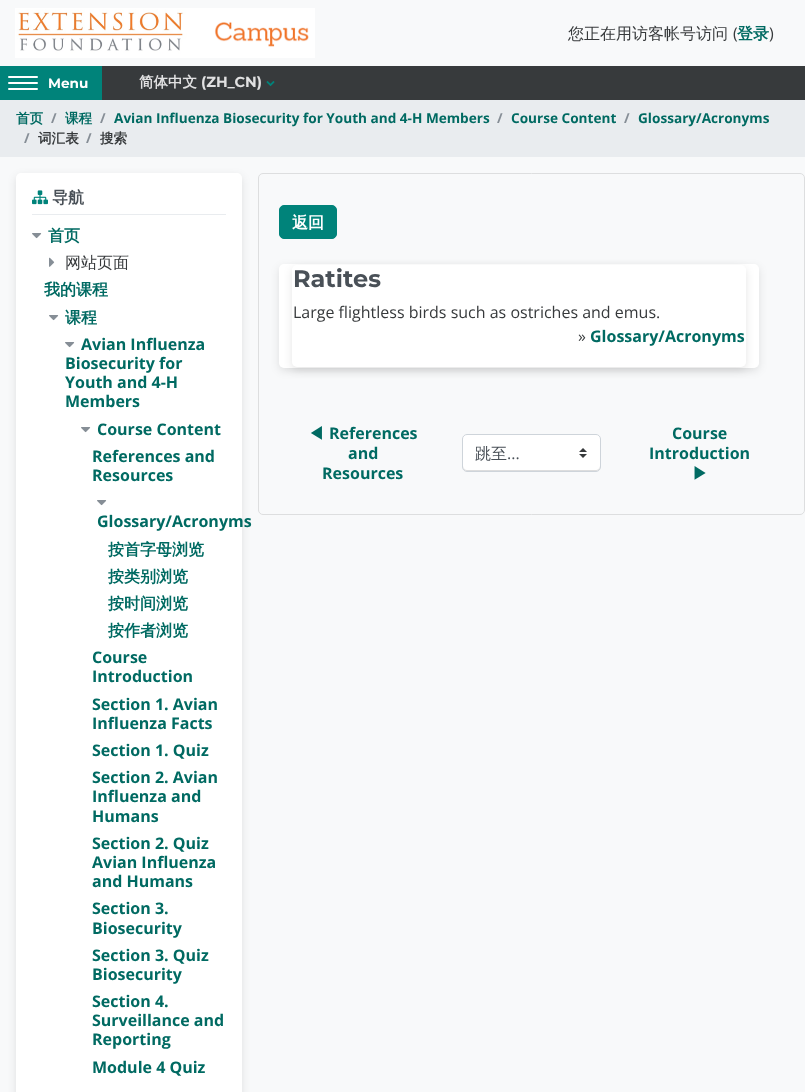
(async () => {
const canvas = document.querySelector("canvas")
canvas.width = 805
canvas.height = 1092
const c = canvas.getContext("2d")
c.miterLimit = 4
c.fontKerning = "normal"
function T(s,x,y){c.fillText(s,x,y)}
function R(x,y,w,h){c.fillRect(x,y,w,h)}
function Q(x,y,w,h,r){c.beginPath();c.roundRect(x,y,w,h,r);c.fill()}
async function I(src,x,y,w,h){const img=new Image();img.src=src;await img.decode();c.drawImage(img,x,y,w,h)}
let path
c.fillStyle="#f8f9fa"
R(0,0,805,1092)
await I("1.png",15,8,300,50)
c.font="500 16px WenQuanYi Zen Hei"
c.fillStyle="#373a3c"
T("您正在用访客帐号访问",568,39)
c.font="16px Open Sans"
T("(",733,39)
c.font="bold 16px WenQuanYi Zen Hei"
c.fillStyle="#006a62"
T("登录",737,39)
c.font="16px Open Sans"
c.fillStyle="#373a3c"
T(")",769,39)
R(102,66,703,34)
c.fillStyle="#00837a"
R(0,66,102,34)
c.fillStyle="#fff"
Q(8,76,30,2,1)
Q(8,82,30,2,1)
Q(8,88,30,2,1)
c.font="bold 13.6px Montserrat"
T("Menu",48,88)
c.font="bold 14.5px WenQuanYi Zen Hei"
c.fillStyle="#e1e1e2"
T("简体中文",139,87)
c.font="bold 14.5px Montserrat"
T("(ZH_CN)",201,87)
await I("2.png",266,81,9,6)
c.fillStyle="#e9ecef"
R(0,100,805,57)
c.font="bold 13.6px WenQuanYi Zen Hei"
c.fillStyle="#006a62"
T("首页",16,123)
c.font="bold 13.6px Open Sans"
c.fillStyle="#868e96"
T("/",51,123)
c.font="bold 13.6px WenQuanYi Zen Hei"
c.fillStyle="#006a62"
T("课程",65,123)
c.font="bold 13.6px Open Sans"
c.fillStyle="#868e96"
T("/",100,123)
c.fillStyle="#006a62"
T("Avian Influenza Biosecurity for Youth and 4-H Members",114,123)
c.fillStyle="#868e96"
T("/",497,123)
c.fillStyle="#006a62"
T("Course Content",511,123)
c.fillStyle="#868e96"
T("/",624,123)
c.fillStyle="#006a62"
T("Glossary/Acronyms",638,123)
c.fillStyle="#868e96"
T("/",24,143)
c.font="bold 13.6px WenQuanYi Zen Hei"
c.fillStyle="#373a3c"
T("词汇表",38,143)
c.font="bold 13.6px Open Sans"
c.fillStyle="#868e96"
T("/",86,143)
c.font="bold 13.6px WenQuanYi Zen Hei"
c.fillStyle="#373a3c"
T("搜索",100,143)
c.fillStyle="#0000001a"
c.filter="blur(4px)"
c.beginPath()
c.roundRect(16,176,226,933,5)
c.fill()
c.filter="none"
c.fillStyle="#fff"
Q(16,173,226,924,5)
c.fillStyle="#e9ecef"
R(32,214,194,1)
await I("3.png",32,190,16,15)
c.font="bold 16px WenQuanYi Zen Hei"
c.fillStyle="#495057"
T("导航",52,203)
await I("4.png",32,233,10,6)
c.fillStyle="#006a62"
T("首页",48,241)
await I("5.png",49,257,6,10)
c.font="500 16px WenQuanYi Zen Hei"
c.fillStyle="#373a3c"
T("网站页面",65,268)
c.font="bold 16px WenQuanYi Zen Hei"
c.fillStyle="#006a62"
T("我的课程",44,295)
await I("4.png",49,315,10,6)
T("课程",65,323)
await I("4.png",65,342,10,6)
c.font="bold 16px Open Sans"
T("Avian Influenza",81,350)
T("Biosecurity for",65,369)
T("Youth and 4-H",65,388)
T("Members",65,407)
await I("4.png",81,427,10,6)
T("Course Content",97,435)
T("References and",92,462)
T("Resources",92,481)
await I("4.png",97,500,10,6)
T("Glossary/Acronyms",97,527)
c.font="bold 16px WenQuanYi Zen Hei"
T("按首字母浏览",108,555)
T("按类别浏览",108,582)
T("按时间浏览",108,609)
T("按作者浏览",108,636)
c.font="bold 16px Open Sans"
T("Course",92,663)
T("Introduction",92,682)
T("Section 1. Avian",92,710)
T("Influenza Facts",92,729)
T("Section 1. Quiz",92,756)
T("Section 2. Avian",92,783)
T("Influenza and",92,802)
T("Humans",92,822)
T("Section 2. Quiz",92,849)
T("Avian Influenza",92,868)
T("and Humans",92,887)
T("Section 3.",92,914)
T("Biosecurity",92,934)
T("Section 3. Quiz",92,961)
T("Biosecurity",92,980)
T("Section 4.",92,1007)
T("Surveillance and",92,1026)
T("Reporting",92,1045)
T("Module 4 Quiz",92,1073)
c.beginPath()
c.roundRect(258.5,173.5,546,341,4.5)
c.strokeStyle="#dddedf"
c.stroke()
c.fillStyle="#00837a"
c.beginPath()
c.roundRect(279.5,205.5,57,33,4.5)
c.fill()
c.strokeStyle="#00837a"
c.stroke()
c.font="bold 16px WenQuanYi Zen Hei"
c.fillStyle="#fff"
T("返回",292,228)
c.fillStyle="#0000001a"
c.filter="blur(4px)"
c.beginPath()
c.roundRect(279,267,480,104,5)
c.fill()
c.filter="none"
c.fillStyle="#fff"
Q(279,264,480,104,5)
c.fillStyle="#0000001a"
c.filter="blur(4px)"
c.beginPath()
c.roundRect(292,268,454,102,5)
c.fill()
c.filter="none"
c.fillStyle="#fff"
Q(292,265,454,102,5)
c.font="bold 24px Montserrat"
c.fillStyle="#495057"
T("Ratites",293,287)
c.font="16px Open Sans"
c.fillStyle="#373a3c"
T("Large flightless birds such as ostriches and emus.",293,318)
T("»",578,342)
c.font="bold 16px Open Sans"
c.fillStyle="#006a62"
T("Glossary/Acronyms",590,342)
c.font="bold 16px WenQuanYi Zen Hei"
T("◀︎",308,439)
c.font="bold 16px Open Sans"
T("References",329,439)
T("and",348,459)
T("Resources",322,479)
c.fillStyle="#fff"
Q(462,434,139,38,5)
await I("6.png",579,448,8,10)
c.fillStyle="#ddd"
path = new Path2D("M463 466v1c0 2 2 4 4 4h129c2 0 4-2 4-4v-1c0 2-2 4-4 4h-129c-2 0-4-2-4-4z")
c.fill(path)
c.beginPath()
c.roundRect(462.5,434.5,138,37,4.5)
c.strokeStyle="#ced4da"
c.stroke()
c.font="500 16px WenQuanYi Zen Hei"
c.fillStyle="#495057"
T("跳至",475,459)
c.font="16px Open Sans"
T("...",507,459)
c.font="bold 16px Open Sans"
c.fillStyle="#006a62"
T("Course",672,439)
T("Introduction",649,459)
c.font="bold 16px WenQuanYi Zen Hei"
T("▶︎",692,479)
})()
